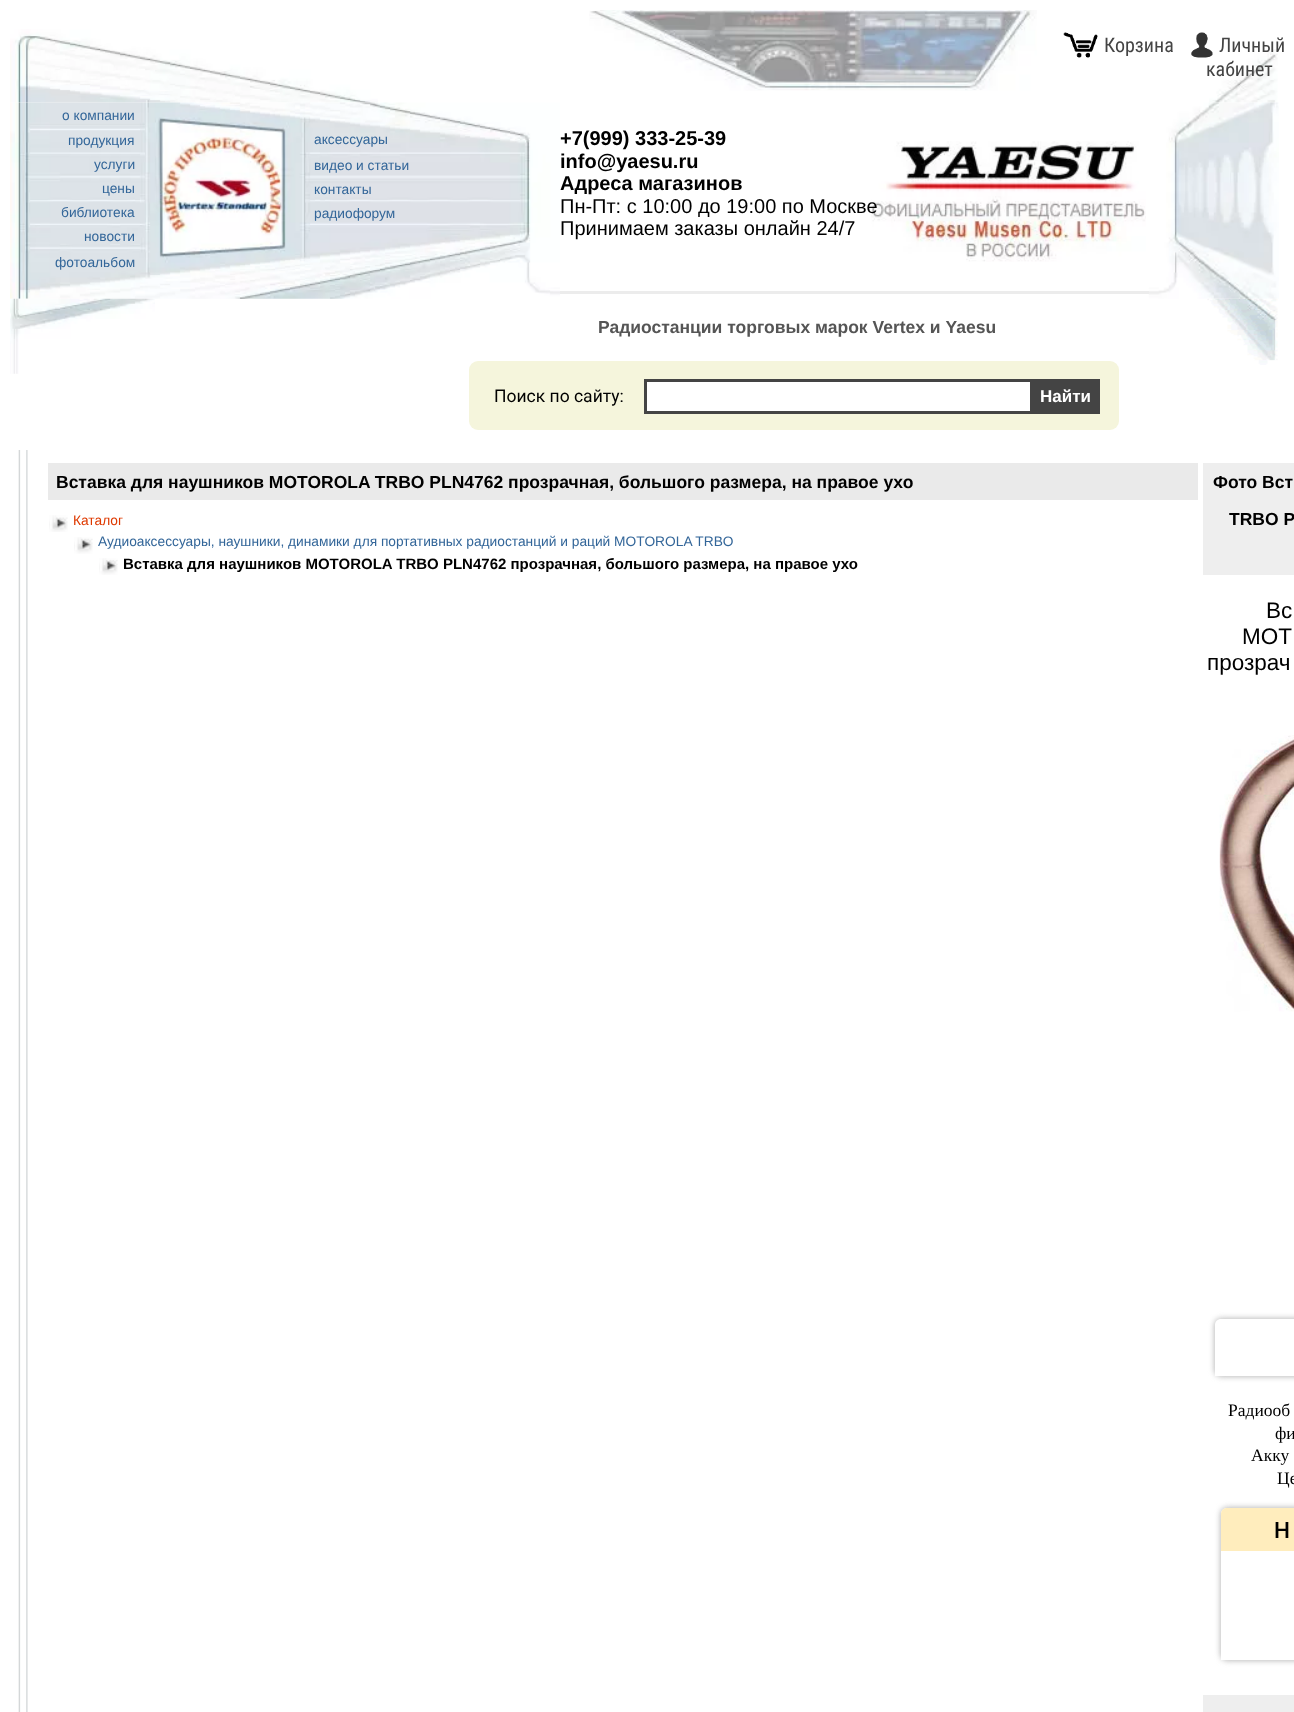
(async () => {
const canvas = document.querySelector("canvas")
canvas.width = 1294
canvas.height = 1712
const c = canvas.getContext("2d")
c.miterLimit = 4
c.fontKerning = "normal"
function T(s,x,y){c.fillText(s,x,y)}
function R(x,y,w,h){c.fillRect(x,y,w,h)}
function Q(x,y,w,h,r){c.beginPath();c.roundRect(x,y,w,h,r);c.fill()}
async function I(src,x,y,w,h){const img=new Image();img.src=src;await img.decode();c.drawImage(img,x,y,w,h)}
let path
c.fillStyle="#fff"
R(0,0,1294,1712)
await I("1.png",10,29,368,74)
await I("2.png",589,10,448,81)
await I("3.png",1209,49,69,54)
await I("4.png",1063,32,35,26)
c.font="20px Roboto Condensed"
c.fillStyle="#444"
T("Корзина",1104,52)
await I("5.png",1191,32,22,26)
T("Личный",1219,52)
T("кабинет",1206,76)
await I("6.png",10,102,550,197)
c.font="13.75px Liberation Sans"
c.fillStyle="#369"
T("о компании",62,120)
T("продукция",68,145)
T("услуги",94,169)
T("цены",102,193)
T("библиотека",61,217)
T("новости",84,241)
T("фотоальбом",55,267)
T("аксессуары",314,144)
T("видео и статьи",314,170)
T("контакты",314,194)
T("радиофорум",314,218)
c.font="bold 20px Liberation Sans"
c.fillStyle="#000"
T("+7(999) 333-25-39",560,145)
T("info@yaesu.ru",560,168)
T("Адреса магазинов",560,190)
await I("7.png",871,141,275,121)
c.font="20px Liberation Sans"
T("Пн-Пт: с 10:00 до 19:00 по Москве",560,213)
T("Принимаем заказы онлайн 24/7",560,235)
await I("8.png",1148,102,131,197)
c.fillStyle="#ececec"
R(560,291,589,3)
await I("9.png",10,298,145,76)
c.font="bold 17.5px Liberation Sans"
c.fillStyle="#555"
T("Радиостанции торговых марок Vertex и Yaesu",598,333)
c.fillStyle="#f5f5dc"
Q(469,361,650,69,9)
c.font="17.5px Roboto"
c.fillStyle="#000"
T("Поиск по сайту:",494,402)
c.fillStyle="#fff"
c.beginPath()
c.rect(645.5,380.5,386,32)
c.fill()
c.strokeStyle="#444"
c.lineWidth=3
c.stroke()
c.fillStyle="#444"
R(1033,379,67,35)
c.font="bold 17px Liberation Sans"
c.fillStyle="#fff"
T("Найти",1040,402)
await I("10.png",1207,298,71,67)
await I("11.png",18,450,10,1262)
c.fillStyle="#eaeaea"
R(48,463,1150,37)
c.font="bold 17.5px Liberation Sans"
c.fillStyle="#000"
T("Вставка для наушников MOTOROLA TRBO PLN4762 прозрачная, большого размера, на правое ухо",56,488)
await I("12.png",49,515,19,17)
c.font="13.75px Liberation Sans"
c.fillStyle="#de3900"
T("Каталог",73,525)
await I("13.png",74,537,19,17)
c.fillStyle="#369"
T("Аудиоаксессуары, наушники, динамики для портативных радиостанций и раций MOTOROLA TRBO",98,546)
await I("14.png",99,558,19,17)
c.font="bold 15px Liberation Sans"
c.fillStyle="#000"
T("Вставка для наушников MOTOROLA TRBO PLN4762 прозрачная, большого размера, на правое ухо",123,569)
c.fillStyle="#eee"
R(1203,463,91,112)
c.font="bold 17.5px Liberation Sans"
c.fillStyle="#000"
T("Фото Вст",1213,488)
T("TRBO P",1229,525)
c.font="22.5px Liberation Sans"
T("Вс",1266,618)
T("MOT",1242,644)
T("прозрач",1207,670)
await I("15.png",1219,735,75,277)
c.save()
path = new Path2D("M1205 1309h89v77h-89zm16 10h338c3.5 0 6 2.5 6 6v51h-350v-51c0-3.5 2.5-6 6-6z")
c.clip(path,"evenodd")
c.fillStyle="#aaa"
c.filter="blur(3px)"
c.beginPath()
c.roundRect(1215,1319,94,57,6)
c.fill()
c.filter="none"
c.restore()
c.font="17.5px Liberation Serif"
T("Радиооб",1228,1416)
T("фи",1275,1439)
T("Акку",1251,1461)
T("Це",1277,1484)
c.save()
path = new Path2D("M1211 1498h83v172h-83zm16 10h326c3.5 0 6 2.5 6 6v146h-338v-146c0-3.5 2.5-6 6-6z")
c.clip(path,"evenodd")
c.fillStyle="#aaa"
c.filter="blur(3px)"
c.beginPath()
c.roundRect(1221,1508,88,152,6)
c.fill()
c.filter="none"
c.restore()
c.fillStyle="#ffedbd"
path = new Path2D("M1227 1508h67c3.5 0 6 2.5 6 6v37h-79v-37c0-3.5 2.5-6 6-6z")
c.fill(path)
c.font="500 22.5px Roboto"
c.fillStyle="#000"
T("Н",1274,1538)
c.fillStyle="#eee"
R(1203,1695,91,17)
})()
